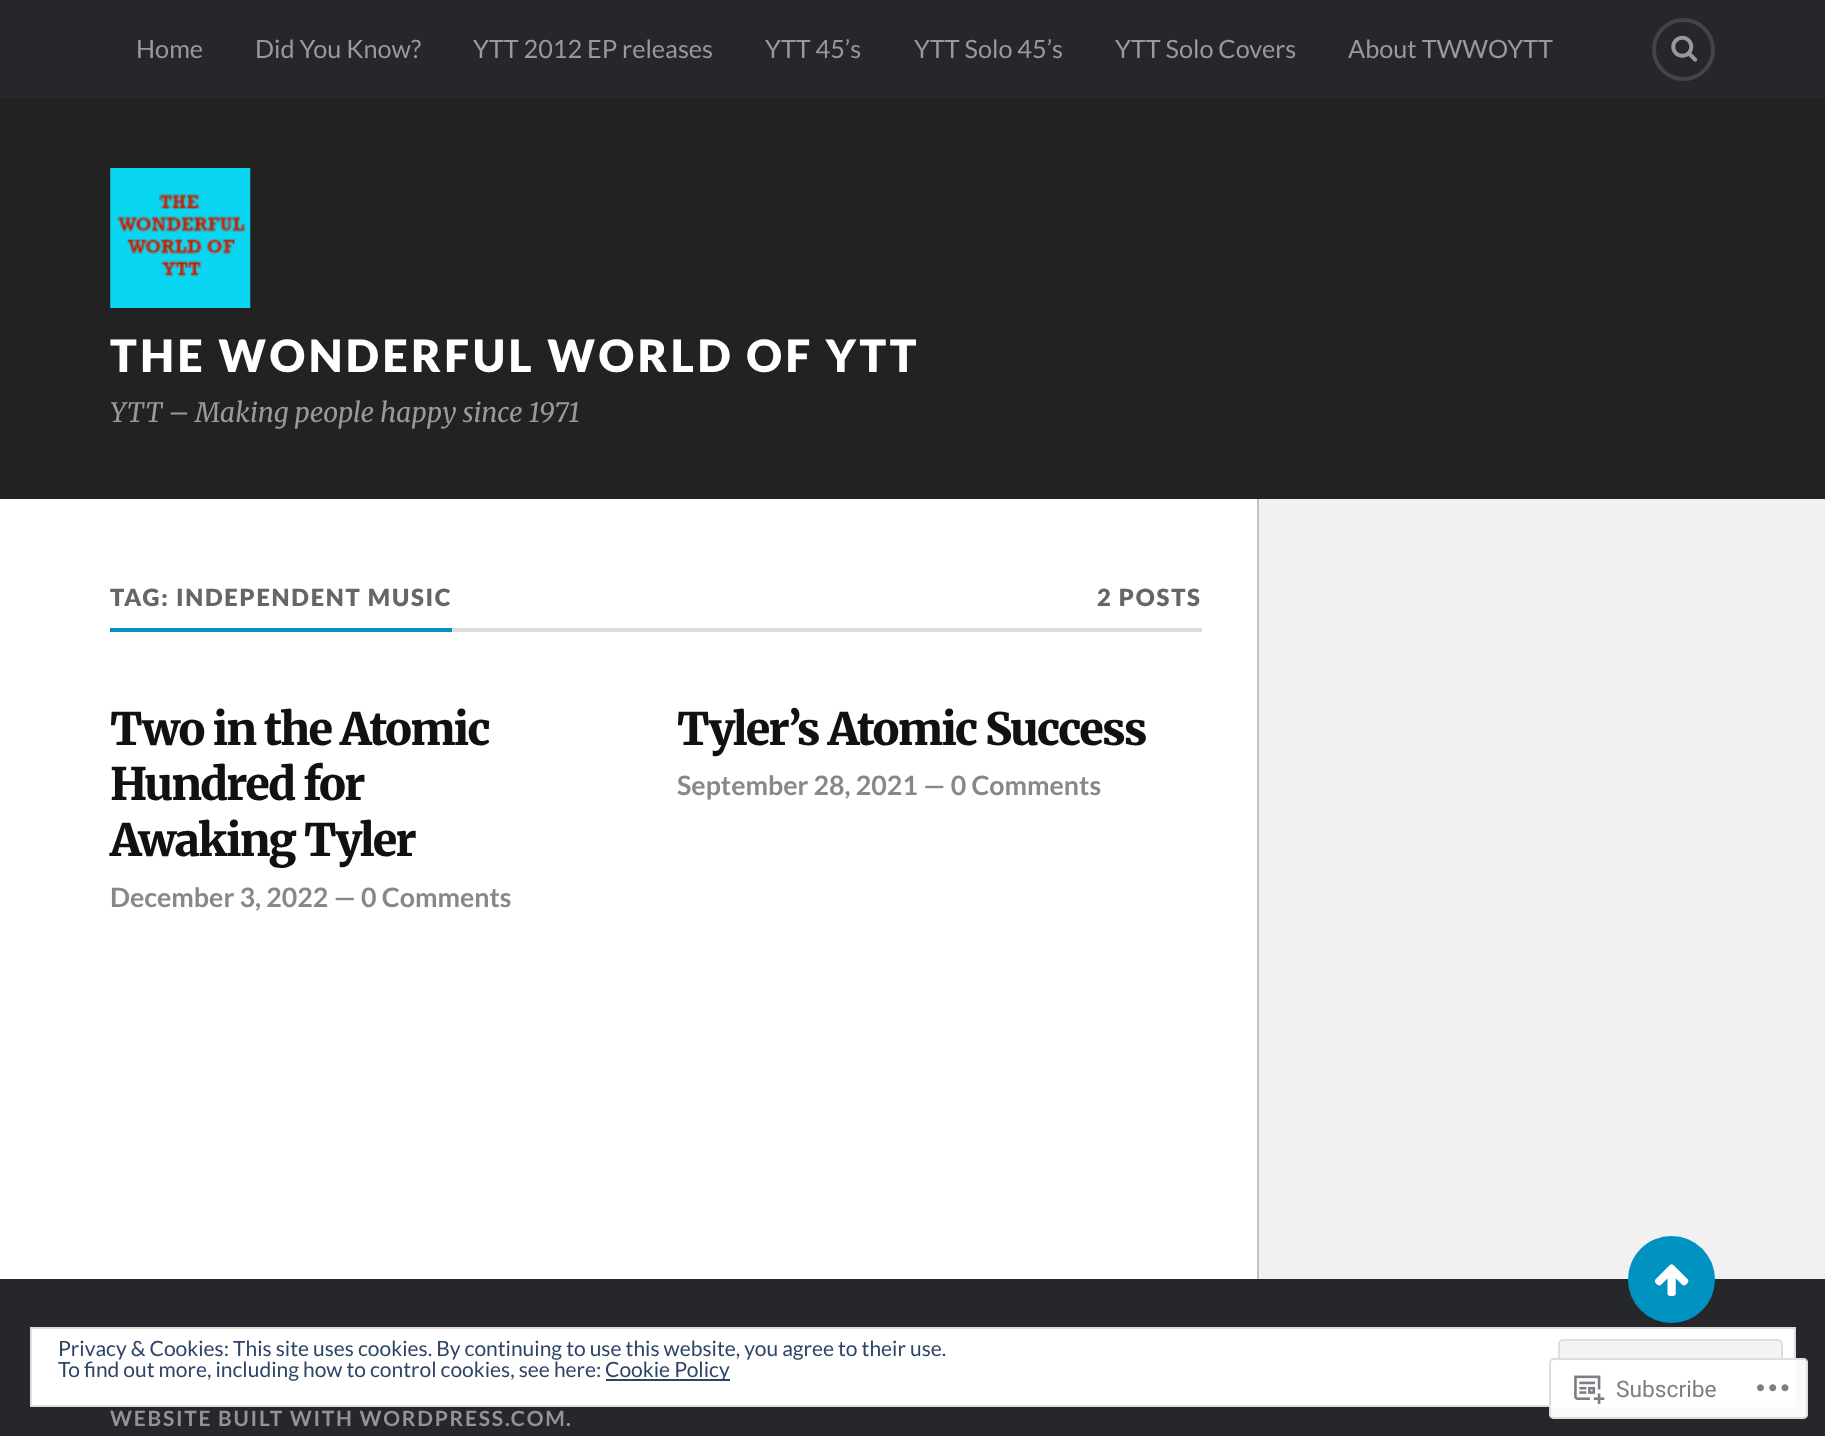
(async () => {
const canvas = document.querySelector("canvas")
canvas.width = 1825
canvas.height = 1436
const c = canvas.getContext("2d")
c.miterLimit = 4
c.fontKerning = "normal"
function T(s,x,y){c.fillText(s,x,y)}
function R(x,y,w,h){c.fillRect(x,y,w,h)}
function Q(x,y,w,h,r){c.beginPath();c.roundRect(x,y,w,h,r);c.fill()}
async function I(src,x,y,w,h){const img=new Image();img.src=src;await img.decode();c.drawImage(img,x,y,w,h)}
c.fillStyle="#f1f1f1"
R(0,0,1825,1436)
c.fillStyle="#26272b"
R(0,0,1825,98)
c.font="25.25px Lato"
c.fillStyle="#999"
T("Home",136,58)
T("Did You Know?",255,58)
T("YTT 2012 EP releases",473,58)
T("YTT 45’s",765,58)
T("YTT Solo 45’s",914,58)
T("YTT Solo Covers",1115,58)
T("About TWWOYTT",1348,58)
c.beginPath()
c.arc(1683.5,49.5,29.5,0,7)
c.strokeStyle="#42444a"
c.lineWidth=4
c.stroke()
await I("1.png",1671,35,27,27)
c.fillStyle="#222"
R(0,98,1825,401)
await I("2.png",110,168,141,140)
c.letterSpacing="3.5px"
c.font="900 44.6px Lato"
c.fillStyle="#fff"
T("THE WONDERFUL WORLD OF YTT",110,372)
c.letterSpacing="0px"
c.font="italic 300 26.75px Merriweather"
c.fillStyle="#999"
T("YTT – Making people happy since 1971",110,422)
c.fillStyle="#fff"
R(0,499,1257,780)
c.fillStyle="#ddd"
R(452,628,750,4)
c.fillStyle="#0093c2"
R(110,628,342,4)
c.letterSpacing="1.75px"
c.font="900 23.75px Lato"
c.fillStyle="#666"
T("TAG: INDEPENDENT MUSIC",110,606)
T("2 POSTS",1097,606)
c.letterSpacing="-1.75px"
c.font="900 44.6px Merriweather"
c.fillStyle="#111"
T("Two in the Atomic",110,745)
T("Hundred for",110,800)
T("Awaking Tyler",110,856)
c.letterSpacing="0px"
c.font="bold 26.75px Lato"
c.fillStyle="#888"
T("December 3, 2022 — 0 Comments",110,907)
c.letterSpacing="-1.75px"
c.font="900 44.6px Merriweather"
c.fillStyle="#111"
T("Tyler’s Atomic Success",677,745)
c.letterSpacing="0px"
c.font="bold 26.75px Lato"
c.fillStyle="#888"
T("September 28, 2021 — 0 Comments",677,795)
c.fillStyle="#c1c1c1"
R(1257,499,2,780)
c.fillStyle="#26272b"
R(0,1279,1825,157)
c.fillStyle="#fff"
c.beginPath()
c.rect(31,1328,1764,78)
c.fill()
c.strokeStyle="#dedede"
c.lineWidth=2
c.stroke()
c.font="21px Lato"
c.fillStyle="#2e4467"
T("Privacy & Cookies: This site uses cookies. By continuing to use this website, you agree to their use.",58,1356)
c.fillStyle="#f3f3f3"
c.beginPath()
c.roundRect(1559,1340,223,54,4)
c.fill()
c.stroke()
c.fillStyle="#2e4467"
T("To find out more, including how to control cookies, see here:",58,1377)
R(606,1379,124,2)
T("Cookie Policy",605,1377)
c.fillStyle="#fffffffa"
Q(1549,1358,259,61,5)
c.beginPath()
c.roundRect(1550,1359,257,59,4)
c.strokeStyle="#dcdcdefa"
c.stroke()
await I("3.png",1574,1375,31,29)
c.font="22.75px Roboto"
c.fillStyle="#7b7f84"
T("Subscribe",1616,1397)
await I("4.png",1757,1384,32,8)
c.fillStyle="#0093c2"
c.beginPath()
c.arc(1671.5,1279.5,43.5,0,7)
c.fill()
await I("5.png",1654,1264,35,32)
c.letterSpacing="1.75px"
c.font="bold 21px Lato"
c.fillStyle="#939395"
T("WEBSITE BUILT WITH WORDPRESS.COM",110,1426)
c.fillStyle="#999"
T(".",566,1426)
})()
